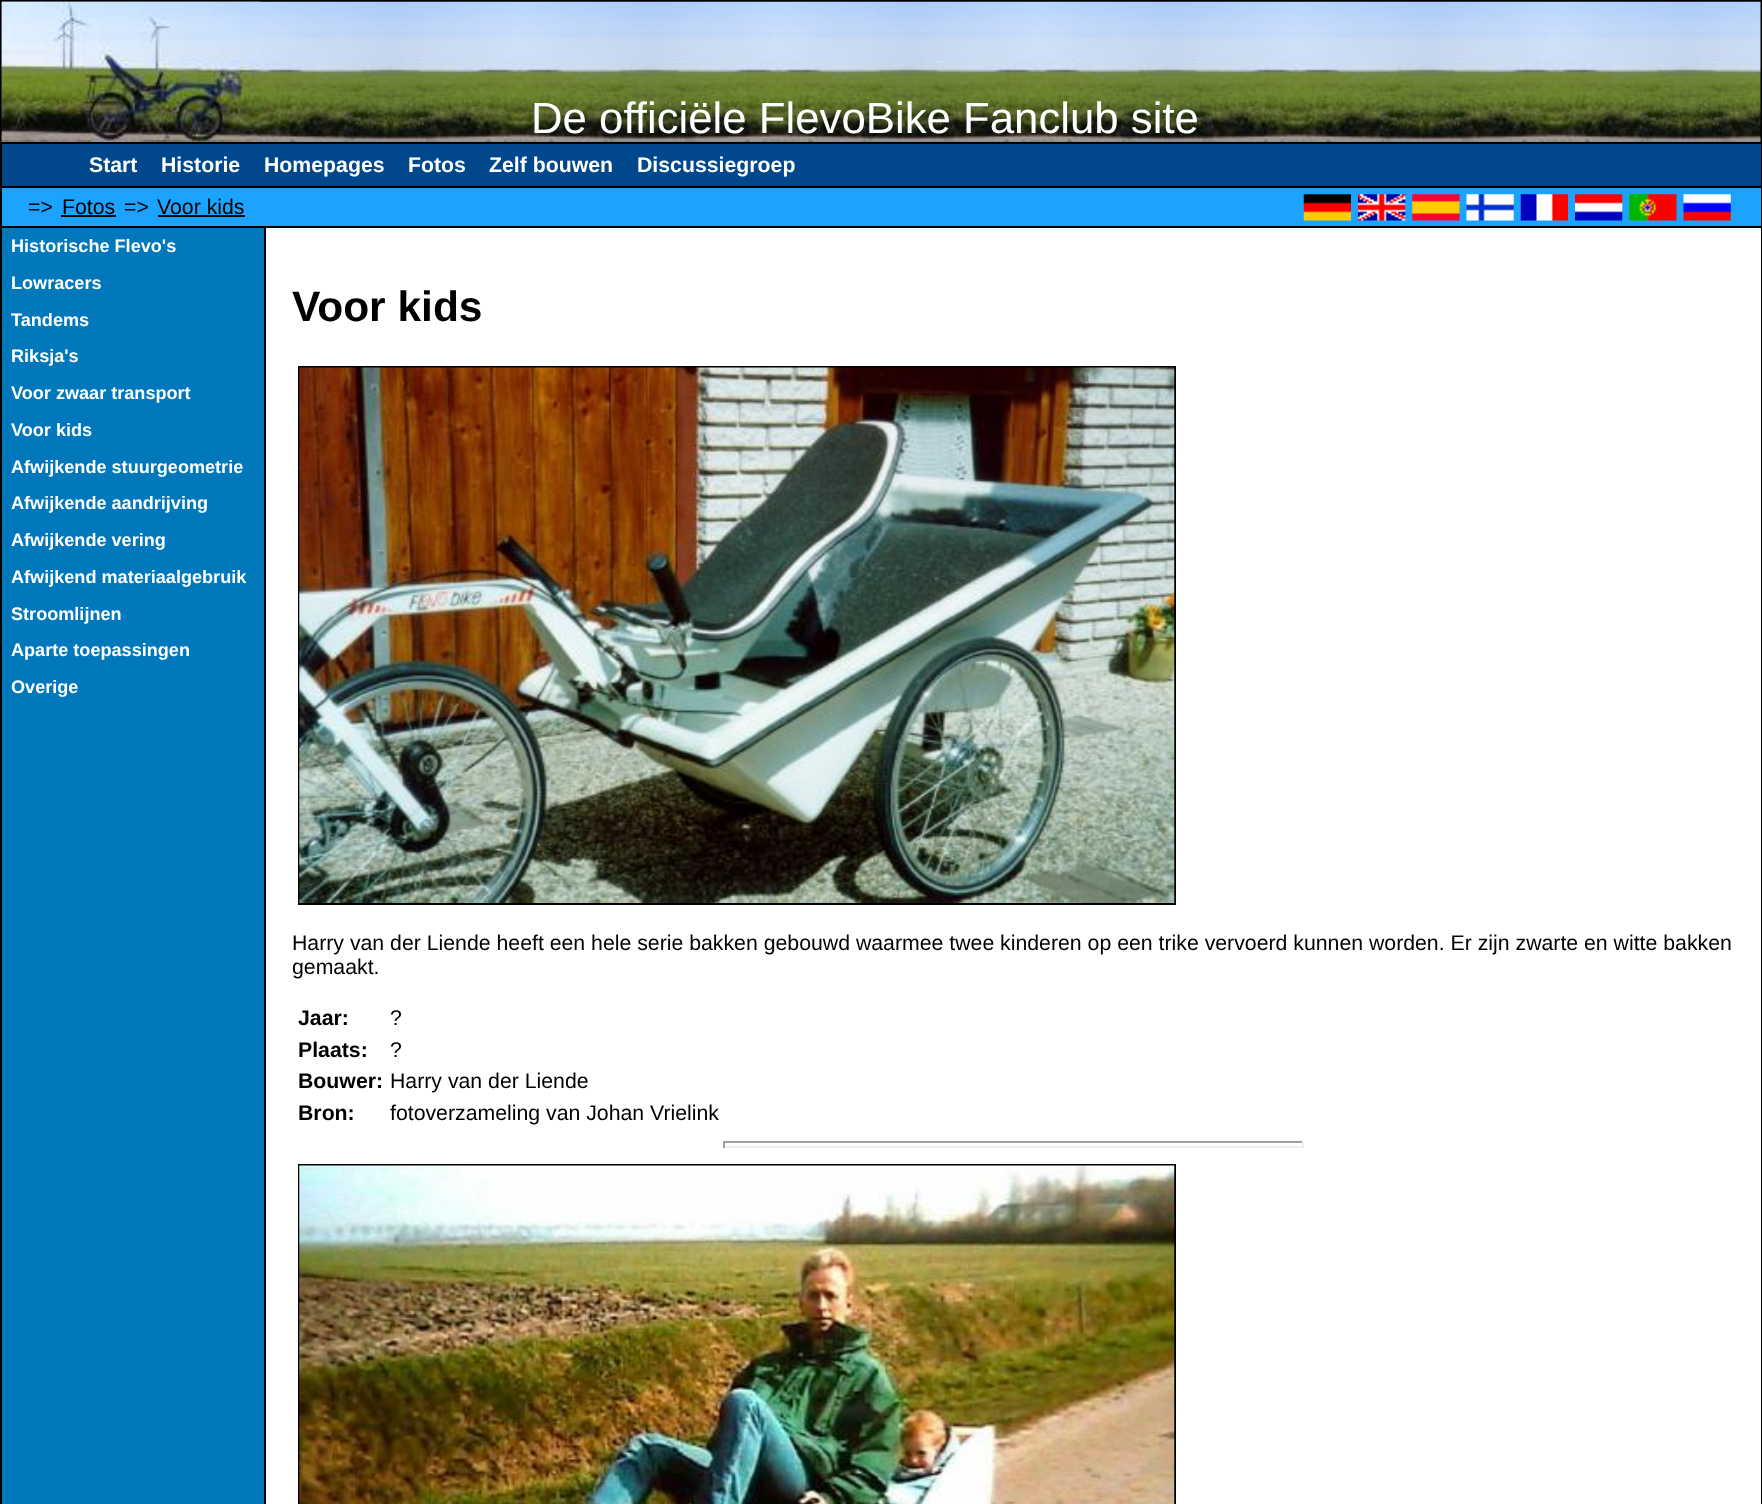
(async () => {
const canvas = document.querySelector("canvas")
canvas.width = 1762
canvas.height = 1504
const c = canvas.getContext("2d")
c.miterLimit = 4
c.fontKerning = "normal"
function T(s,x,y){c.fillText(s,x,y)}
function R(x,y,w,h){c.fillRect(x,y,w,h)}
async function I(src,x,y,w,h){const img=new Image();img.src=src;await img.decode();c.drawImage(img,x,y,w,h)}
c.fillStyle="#0178bb"
R(0,0,1762,1504)
c.strokeStyle="#000"
c.lineWidth=2
c.strokeRect(1,1,1760,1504)
await I("1.png",1,1,1760,141)
await I("2.png",1,1,260,141)
c.font="43.75px Liberation Sans"
c.fillStyle="#fff"
T("De officiële FlevoBike Fanclub site",531,133)
c.fillStyle="#01478c"
R(2,144,1759,42)
c.fillStyle="#000"
R(2,142,1759,2)
c.font="bold 21.28px Liberation Sans"
c.fillStyle="#fff"
T("Start",89,172)
T("Historie",161,172)
T("Homepages",264,172)
T("Fotos",408,172)
T("Zelf bouwen",489,172)
T("Discussiegroep",637,172)
c.fillStyle="#1ba3ff"
R(2,188,1759,38)
c.fillStyle="#000"
R(2,186,1759,2)
c.font="21.28px Liberation Sans"
T("=>",28,214)
T("Fotos",62,214)
R(61,215,55,2)
T("=>",124,214)
T("Voor kids",157,214)
R(158,215,87,2)
await I("3.png",1303,194,48,27)
await I("4.png",1358,194,48,27)
await I("5.png",1412,194,48,27)
await I("6.png",1466,194,48,27)
await I("7.png",1520,194,48,27)
await I("8.png",1575,194,48,27)
await I("9.png",1629,194,48,27)
await I("10.png",1683,194,48,27)
c.font="bold 18.1px Liberation Sans"
c.fillStyle="#fff"
T("Historische Flevo's",11,252)
T("Lowracers",11,289)
T("Tandems",11,326)
T("Riksja's",11,362)
T("Voor zwaar transport",11,399)
T("Voor kids",11,436)
T("Afwijkende stuurgeometrie",11,473)
T("Afwijkende aandrijving",11,509)
T("Afwijkende vering",11,546)
T("Afwijkend materiaalgebruik",11,583)
T("Stroomlijnen",11,620)
T("Aparte toepassingen",11,656)
T("Overige",11,693)
R(266,228,1495,1276)
c.fillStyle="#000"
R(2,226,1759,2)
R(264,226,2,1278)
c.font="bold 42.5px Liberation Sans"
T("Voor kids",292,321)
c.strokeRect(299,367,876,537)
await I("11.png",299,367,876,536)
c.font="21.28px Liberation Sans"
T("Harry van der Liende heeft een hele serie bakken gebouwd waarmee twee kinderen op een trike vervoerd kunnen worden. Er zijn zwarte en witte bakken",292,950)
T("gemaakt.",292,974)
c.font="bold 21.28px Liberation Sans"
T("Jaar:",298,1025)
c.font="21.28px Liberation Sans"
T("?",390,1025)
c.font="bold 21.28px Liberation Sans"
T("Plaats:",298,1057)
c.font="21.28px Liberation Sans"
T("?",390,1057)
c.font="bold 21.28px Liberation Sans"
T("Bouwer:",298,1088)
c.font="21.28px Liberation Sans"
T("Harry van der Liende",390,1088)
c.font="bold 21.28px Liberation Sans"
T("Bron:",298,1120)
c.font="21.28px Liberation Sans"
T("fotoverzameling van Johan Vrielink",390,1120)
c.fillStyle="#9f9f9f"
R(723,1141,581,2)
c.fillStyle="#eee"
R(1302,1141,2,7)
R(723,1146,581,2)
c.fillStyle="#9f9f9f"
R(723,1141,2,7)
c.strokeRect(299,1165,876,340)
await I("12.png",299,1165,876,339)
})()
